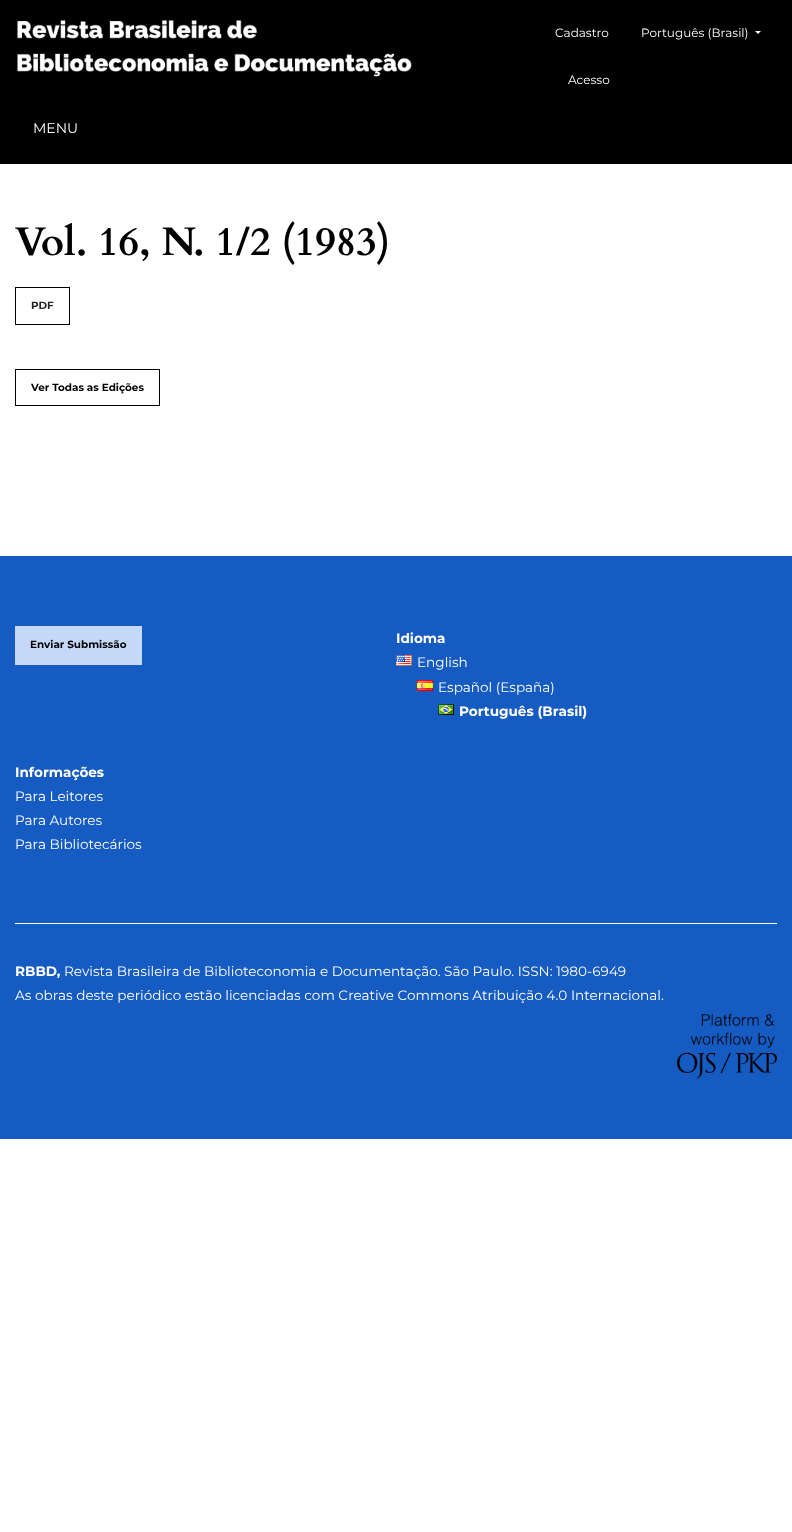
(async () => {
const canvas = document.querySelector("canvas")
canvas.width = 792
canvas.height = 1532
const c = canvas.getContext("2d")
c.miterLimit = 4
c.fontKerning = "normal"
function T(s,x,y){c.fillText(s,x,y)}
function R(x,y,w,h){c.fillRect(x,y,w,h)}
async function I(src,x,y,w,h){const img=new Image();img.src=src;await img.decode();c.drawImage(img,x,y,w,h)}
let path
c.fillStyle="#fff"
R(0,0,792,1532)
c.fillStyle="#000"
R(0,0,792,164)
await I("1.png",17,20,395,57)
c.font="12px Montserrat"
c.fillStyle="#fff"
T("Cadastro",555,37)
T("Acesso",568,84)
T("Português (Brasil)",641,37)
path = new Path2D("M755 31h6l-3 3z")
c.fill(path)
c.font="14px Montserrat"
T("MENU",33,133)
c.font="bold 40px Cardo"
c.fillStyle="#000"
T("Vol. 16, N. 1/2 (1983)",15,255)
c.strokeStyle="#000"
c.strokeRect(15.5,287.5,54,37)
c.font="bold 10.4px Montserrat"
c.fillStyle="#212529"
T("PDF",31,309)
c.strokeRect(15.5,369.5,144,36)
c.fillStyle="#000"
T("Ver Todas as Edições",31,391)
c.fillStyle="#165bc1"
R(0,556,792,583)
c.fillStyle="#c4d9f8"
R(15,626,127,39)
c.fillStyle="#000"
T("Enviar Submissão",30,648)
c.font="bold 13.6px Montserrat"
c.fillStyle="#fff"
T("Idioma",396,643)
await I("2.png",396,655,16,11)
c.font="13.6px Montserrat"
T("English",417,667)
await I("3.png",417,680,16,11)
T("Español (España)",438,692)
await I("4.png",438,704,16,11)
c.font="bold 13.6px Montserrat"
T("Português (Brasil)",459,716)
T("Informações",15,777)
c.font="13.6px Montserrat"
T("Para Leitores",15,801)
T("Para Autores",15,825)
T("Para Bibliotecários",15,849)
R(15,923,762,1)
c.font="bold 13.6px Montserrat"
T("RBBD,",15,976)
c.font="13.6px Montserrat"
T("Revista Brasileira de Biblioteconomia e Documentação. São Paulo. ISSN: 1980-6949",64,976)
T("As obras deste periódico estão licenciadas com Creative Commons Atribuição 4.0 Internacional.",15,1000)
await I("5.png",677,1014,100,65)
})()
